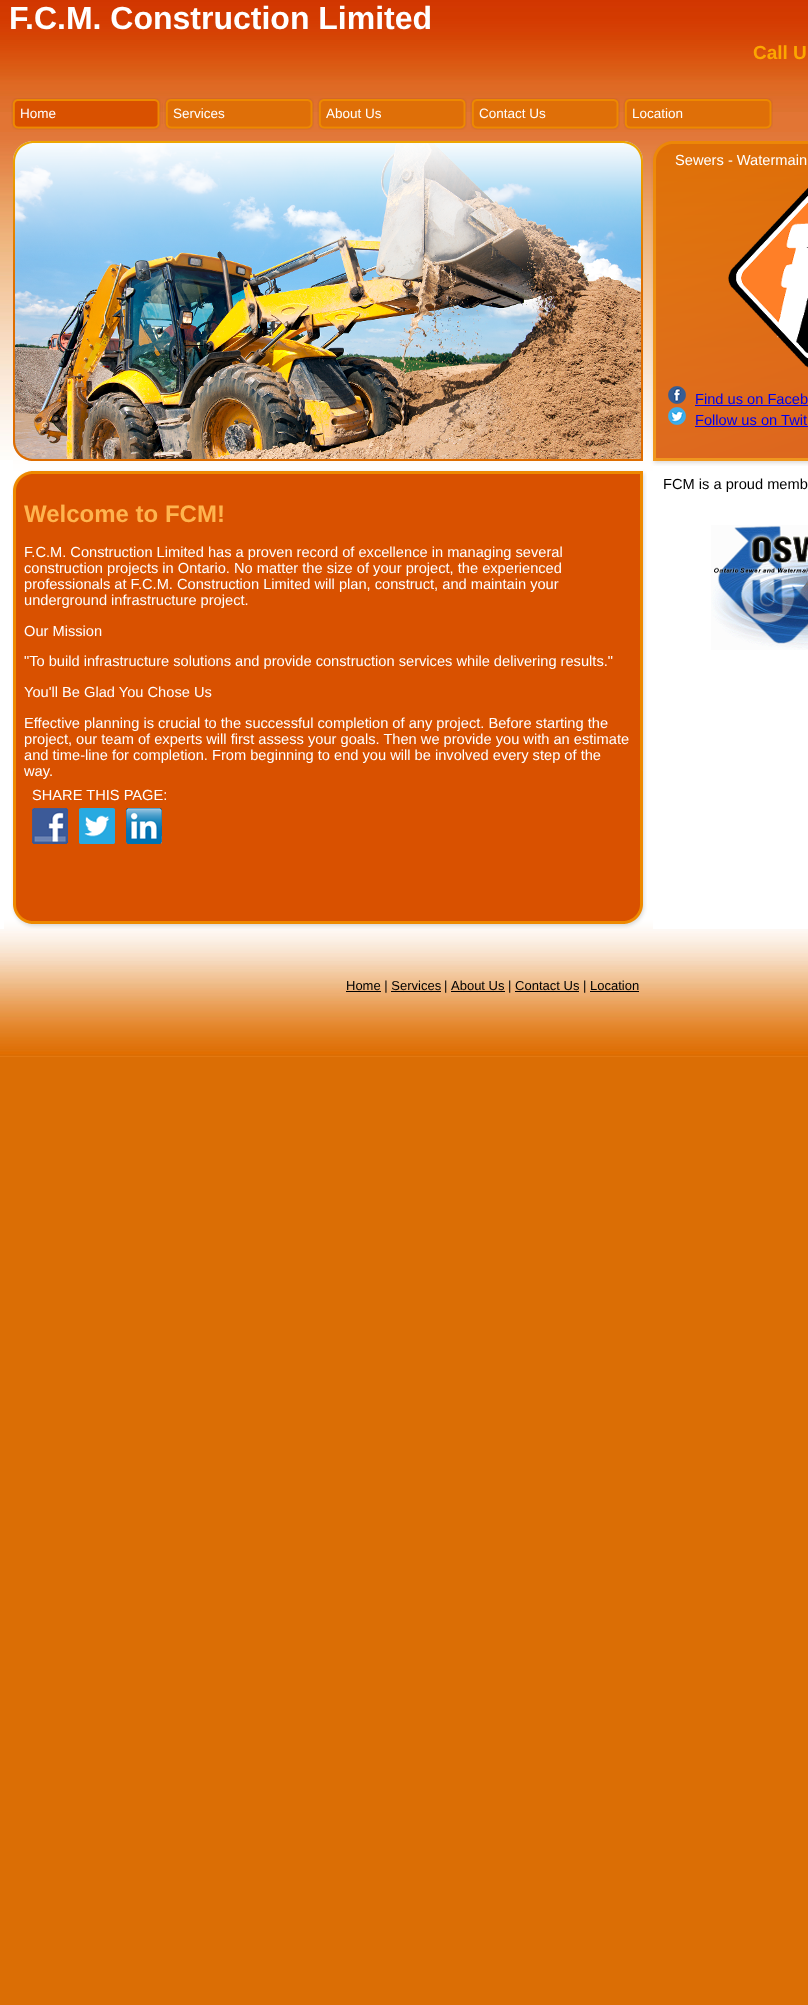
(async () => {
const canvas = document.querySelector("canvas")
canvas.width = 808
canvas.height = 2005
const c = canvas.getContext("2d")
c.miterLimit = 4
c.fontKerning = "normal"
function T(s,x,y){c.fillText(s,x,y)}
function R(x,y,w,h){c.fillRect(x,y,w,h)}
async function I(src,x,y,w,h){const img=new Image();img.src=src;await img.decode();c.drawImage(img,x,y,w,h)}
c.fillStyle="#db6e05"
R(0,0,808,2005)
c.fillStyle="#e27534"
R(0,112,808,20)
await I("1.png",0,0,4,112)
await I("2.png",4,0,804,112)
c.font="bold 32px Liberation Sans"
c.fillStyle="#fff"
T("F.C.M. Construction Limited",9,29)
c.font="bold 19px Liberation Sans"
c.fillStyle="#fca600"
T("Call U",753,59)
await I("3.png",12,124,149,6)
await I("4.png",12,98,149,5)
await I("5.png",11,103,152,21)
c.font="13.5px Liberation Sans"
c.fillStyle="#fff"
T("Home",20,118)
await I("6.png",165,124,149,6)
await I("7.png",165,98,149,5)
await I("8.png",164,103,150,21)
T("Services",173,118)
await I("6.png",318,124,149,6)
await I("7.png",318,98,149,5)
await I("8.png",317,103,150,21)
T("About Us",326,118)
await I("6.png",471,124,149,6)
await I("7.png",471,98,149,5)
await I("8.png",470,103,150,21)
T("Contact Us",479,118)
await I("6.png",624,124,149,6)
await I("7.png",624,98,149,5)
await I("8.png",623,103,150,21)
T("Location",632,118)
R(0,460,808,469)
await I("9.png",0,132,4,328)
await I("10.png",4,132,804,328)
await I("11.png",13,141,640,330)
await I("12.png",653,141,155,325)
c.font="14.65px Liberation Sans"
T("Sewers - Watermain",675,165)
await I("13.png",728,188,80,180)
await I("14.png",668,386,18,18)
c.fillStyle="#00e"
T("Find us on Faceb",695,404)
R(695,405,113,1)
await I("15.png",668,407,18,18)
T("Follow us on Twit",695,425)
R(695,426,113,1)
await I("16.png",12,471,635,24)
c.fillStyle="#000"
T("FCM is a proud memb",663,489)
await I("17.png",711,525,97,125)
await I("18.png",11,495,636,410)
c.font="bold 24px Liberation Sans"
c.fillStyle="#feb44f"
T("Welcome to FCM!",24,522)
c.font="14.65px Liberation Sans"
c.fillStyle="#fff"
T("F.C.M. Construction Limited has a proven record of excellence in managing several",24,557)
T("construction projects in Ontario. No matter the size of your project, the experienced",24,573)
T("professionals at F.C.M. Construction Limited will plan, construct, and maintain your",24,589)
T("underground infrastructure project.",24,605)
T("Our Mission",24,636)
T("\"To build infrastructure solutions and provide construction services while delivering results.\"",24,666)
T("You'll Be Glad You Chose Us",24,697)
T("Effective planning is crucial to the successful completion of any project. Before starting the",24,728)
T("project, our team of experts will first assess your goals. Then we provide you with an estimate",24,744)
T("and time-line for completion. From beginning to end you will be involved every step of the",24,760)
T("way.",24,776)
T("SHARE THIS PAGE:",32,800)
await I("19.png",32,808,36,36)
await I("20.png",79,808,36,36)
await I("21.png",126,808,36,36)
await I("22.png",4,905,649,24)
await I("23.png",0,929,4,128)
await I("24.png",4,929,804,128)
c.fillStyle="#000"
R(346,991,35,1)
c.font="13px Liberation Sans"
T("Home | Services",346,990)
R(391,991,50,1)
T("|",444,990)
R(451,991,54,1)
T("About Us | Contact Us | Location",451,990)
R(515,991,64,1)
R(590,991,49,1)
})()
